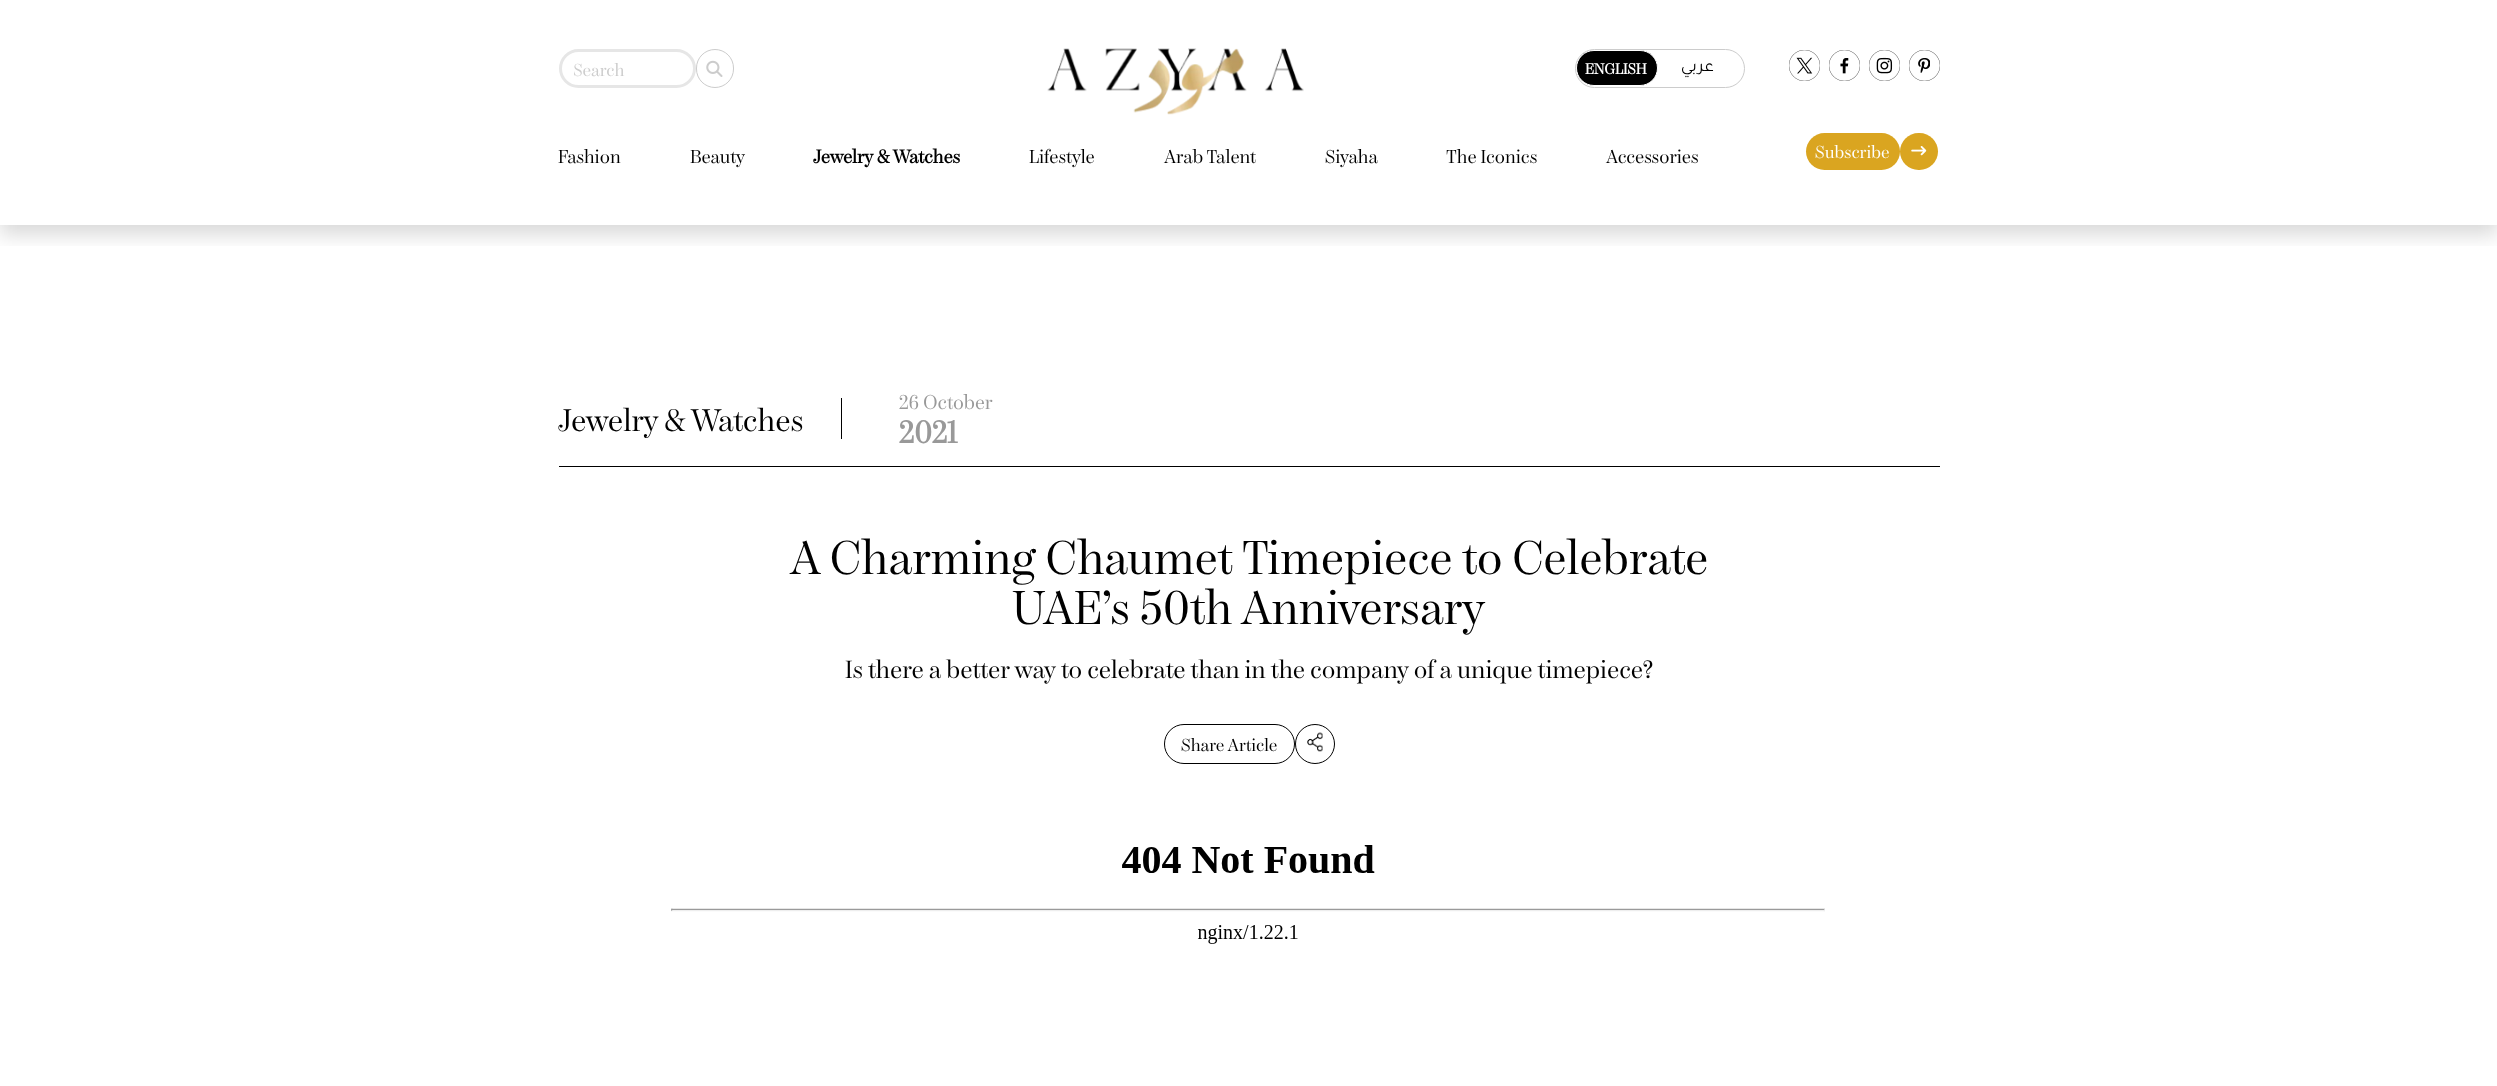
(async () => {
const canvas = document.querySelector("canvas")
canvas.width = 2497
canvas.height = 1086
const c = canvas.getContext("2d")
c.miterLimit = 4
c.fontKerning = "normal"
function T(s,x,y){c.fillText(s,x,y)}
function R(x,y,w,h){c.fillRect(x,y,w,h)}
function Q(x,y,w,h,r){c.beginPath();c.roundRect(x,y,w,h,r);c.fill()}
async function I(src,x,y,w,h){const img=new Image();img.src=src;await img.decode();c.drawImage(img,x,y,w,h)}
c.fillStyle="#fff"
R(0,0,2497,1086)
c.save()
c.beginPath()
c.rect(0,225,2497,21)
c.clip()
c.fillStyle="#00000026"
c.filter="blur(10px)"
c.beginPath()
c.rect(0,10,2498,225)
c.fill()
c.filter="none"
c.restore()
c.beginPath()
c.roundRect(560.5,50.5,134,36,18)
c.strokeStyle="#e6e6e6"
c.lineWidth=3
c.stroke()
c.save()
c.beginPath()
c.rect(574,58,120,23)
c.clip()
c.font="17.5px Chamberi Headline"
c.fillStyle="#ccc"
T("Search",573,76)
c.restore()
c.beginPath()
c.roundRect(696.5,49.5,37,38,18.5)
c.strokeStyle="#ccc"
c.lineWidth=1
c.stroke()
await I("1.png",706,60,17,17)
await I("2.png",1047,48,257,67)
c.beginPath()
c.roundRect(1575.5,49.5,169,38,19)
c.stroke()
c.fillStyle="#000"
c.beginPath()
c.roundRect(1576.5,50.5,81,35,17.5)
c.fill()
c.strokeStyle="#fff"
c.stroke()
c.font="bold 15px Chamberi Headline"
c.fillStyle="#fff"
T("ENGLISH",1585,74)
c.direction="rtl"
c.font="17.5px Tajawal"
c.fillStyle="#000"
T("عربي",1714,71)
await I("3.png",1789,50,31,31)
await I("4.png",1829,50,31,31)
await I("5.png",1869,50,31,31)
await I("6.png",1909,50,31,31)
c.direction="ltr"
c.font="18.75px Chamberi Headline"
T("Fashion",558,163)
T("Beauty",690,163)
c.font="bold 18.75px Chamberi Headline"
T("Jewelry & Watches",813,163)
c.font="18.75px Chamberi Headline"
T("Lifestyle",1029,163)
T("Arab Talent",1164,163)
T("Siyaha",1325,163)
T("The Iconics",1446,163)
T("Accessories",1606,163)
c.fillStyle="#daa520"
Q(1806,133,94,37,18.5)
c.font="17.5px Chamberi Headline"
c.fillStyle="#fff"
T("Subscribe",1815,158)
c.fillStyle="#daa520"
Q(1900,133,38,37,18.5)
await I("7.png",1911,146,16,10)
c.fillStyle="#000"
R(559,466,1381,1)
R(841,398,1,41)
c.font="31.25px Chamberi Headline"
T("Jewelry & Watches",558,431)
c.font="20px Chamberi Headline"
c.fillStyle="#999"
T("26 October",899,409)
c.font="bold 31.25px Chamberi Headline"
T("2021",899,443)
c.font="47.5px Chamberi Headline"
c.fillStyle="#000"
T("A Charming Chaumet Timepiece to Celebrate",790,574)
T("UAE’s 50th Anniversary",1012,624)
c.font="25px Chamberi Headline"
T("Is there a better way to celebrate than in the company of a unique timepiece?",845,678)
c.beginPath()
c.roundRect(1164.5,724.5,130,39,19.5)
c.strokeStyle="#000"
c.stroke()
c.font="17.5px Chamberi Headline"
T("Share Article",1181,751)
c.beginPath()
c.arc(1315,744,19.5,0,7)
c.stroke()
await I("8.png",1307,732,16,20)
await I("9.png",671,845,1154,99)
})()
